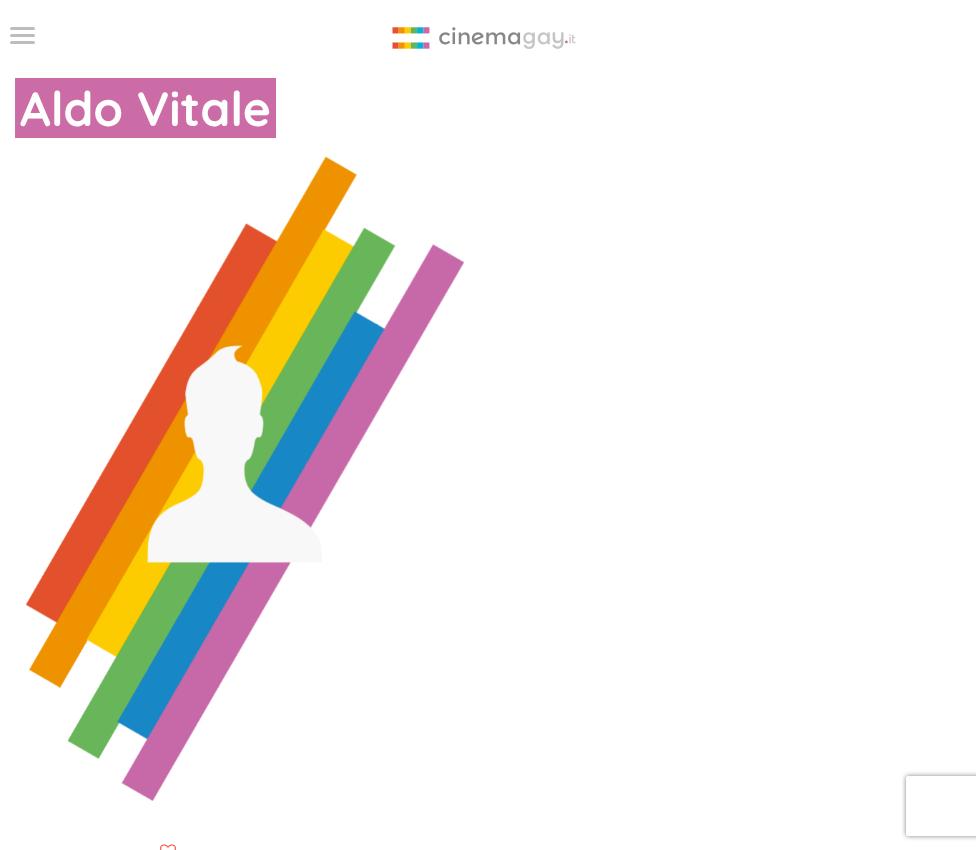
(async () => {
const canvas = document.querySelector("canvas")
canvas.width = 976
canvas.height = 850
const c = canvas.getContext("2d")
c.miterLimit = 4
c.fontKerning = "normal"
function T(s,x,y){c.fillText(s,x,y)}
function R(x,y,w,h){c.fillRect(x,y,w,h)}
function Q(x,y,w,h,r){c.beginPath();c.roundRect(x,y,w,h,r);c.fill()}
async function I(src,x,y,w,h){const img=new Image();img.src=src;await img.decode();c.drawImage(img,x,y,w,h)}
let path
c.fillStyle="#fff"
R(0,0,976,850)
c.fillStyle="#bdbdbd"
Q(10,34,25,3,1.5)
Q(10,27,25,3,1.5)
Q(10,41,25,3,1.5)
await I("1.png",392,27,184,22)
c.fillStyle="#cb6ca7"
R(15,78,261,60)
c.font="bold 48px Quicksand"
c.fillStyle="#fefefe"
T("Aldo Vitale",20,126)
await I("2.png",25,156,440,646)
await I("3.png",160,844,16,6)
c.save()
path = new Path2D("M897 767h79v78h-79zm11 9h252c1 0 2 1 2 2v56c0 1-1 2-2 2h-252c-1 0-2-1-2-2v-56c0-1 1-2 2-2z")
c.clip(path,"evenodd")
c.fillStyle="#808080"
c.filter="blur(2.5px)"
c.beginPath()
c.roundRect(906,776,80,60,2)
c.fill()
c.filter="none"
c.restore()
})()
